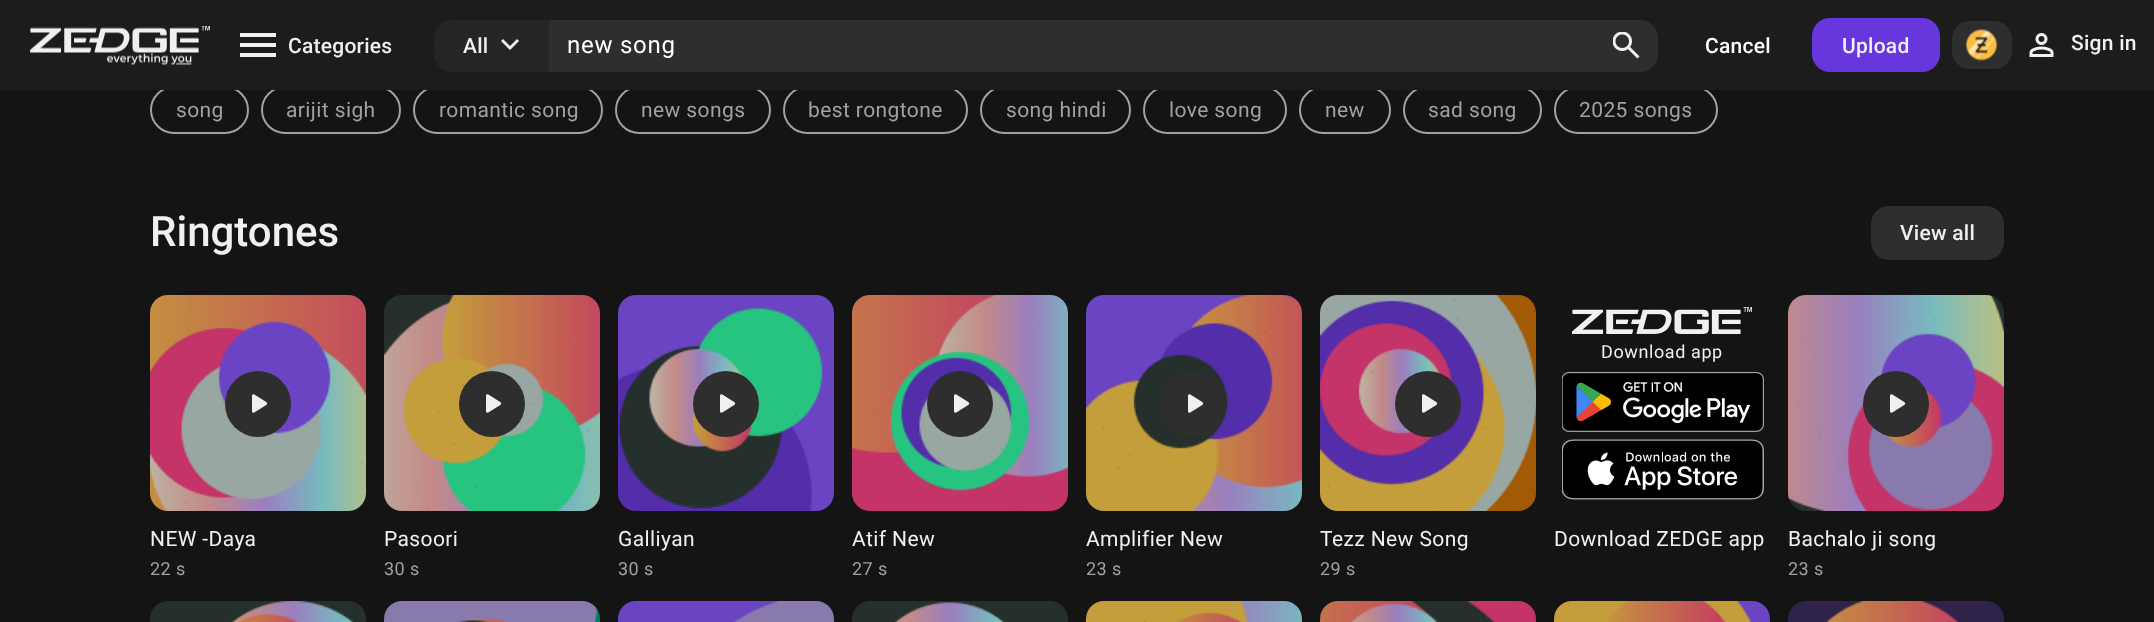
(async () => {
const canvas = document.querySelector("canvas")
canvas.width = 2154
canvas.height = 622
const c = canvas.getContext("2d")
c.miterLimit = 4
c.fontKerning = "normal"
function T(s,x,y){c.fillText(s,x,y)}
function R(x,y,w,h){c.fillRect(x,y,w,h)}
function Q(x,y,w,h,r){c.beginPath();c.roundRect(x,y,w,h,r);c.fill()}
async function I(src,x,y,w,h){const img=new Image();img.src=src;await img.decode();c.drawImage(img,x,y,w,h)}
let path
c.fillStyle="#141414"
R(0,0,2154,622)
c.beginPath()
c.roundRect(151,87,97,46,23)
c.strokeStyle="#a1a1a1"
c.lineWidth=2
c.stroke()
c.beginPath()
c.roundRect(262,87,138,46,23)
c.stroke()
c.beginPath()
c.roundRect(414,87,188,46,23)
c.stroke()
c.beginPath()
c.roundRect(616,87,154,46,23)
c.stroke()
c.beginPath()
c.roundRect(784,87,183,46,23)
c.stroke()
c.beginPath()
c.roundRect(981,87,149,46,23)
c.stroke()
c.beginPath()
c.roundRect(1144,87,142,46,23)
c.stroke()
c.beginPath()
c.roundRect(1300,87,90,46,23)
c.stroke()
c.beginPath()
c.roundRect(1404,87,137,46,23)
c.stroke()
c.beginPath()
c.roundRect(1555,87,162,46,23)
c.stroke()
c.fillStyle="#1c1c1c"
R(0,0,2154,90)
await I("1.png",30,26,180,27)
await I("2.png",107,53,85,12)
c.fillStyle="#f0f0f0"
path = new Path2D("M240 57v-4h36v4zm0-10v-4h36v4zm0-10v-4h36v4z")
c.fill(path)
c.letterSpacing="0.25px"
c.font="500 21px Roboto"
T("Categories",288,53)
c.fillStyle="#252525"
c.beginPath()
c.roundRect(434,20,115,52,[18,0,0,18])
c.fill()
c.fillStyle="#f0f0f0"
T("All",463,53)
path = new Path2D("M510 50l-9-9l2-2l7 7l7-7l2 2z")
c.fill(path)
c.fillStyle="#2e2e2e"
c.beginPath()
c.roundRect(549,20,1109,52,[0,18,18,0])
c.fill()
c.letterSpacing="0.75px"
c.font="24px Roboto"
c.fillStyle="#fff"
T("new song",567,53)
await I("3.png",1613,32,27,27)
c.letterSpacing="0.25px"
c.font="500 21px Roboto"
T("Cancel",1705,53)
c.fillStyle="#6836dd"
Q(1812,18,128,54,18)
c.fillStyle="#f0f0f0"
T("Upload",1842,53)
c.fillStyle="#2e2e2e"
Q(1952,21,60,48,18)
await I("4.png",1965,28,33,33)
await I("5.png",2029,33,25,24)
c.fillStyle="#f0f0f0"
T("Sign in",2071,50)
c.letterSpacing="0.4px"
c.font="21px Roboto"
c.fillStyle="#a1a1a1"
T("song",176,117)
T("arijit sigh",286,117)
T("romantic song",439,117)
T("new songs",641,117)
T("best rongtone",808,117)
T("song hindi",1006,117)
T("love song",1169,117)
T("new",1325,117)
T("sad song",1428,117)
T("2025 songs",1579,117)
c.letterSpacing="0px"
c.font="500 42px Roboto"
c.fillStyle="#f0f0f0"
T("Ringtones",150,246)
c.fillStyle="#2e2e2e"
Q(1871,206,133,54,18)
c.letterSpacing="0.25px"
c.font="500 21px Roboto"
c.fillStyle="#f0f0f0"
T("View all",1900,240)
await I("6.png",150,295,216,216)
c.fillStyle="#2e2e2e"
c.beginPath()
c.arc(258,404,33,0,7)
c.fill()
await I("7.png",252,394,16,19)
c.letterSpacing="0.4px"
c.font="21px Roboto"
c.fillStyle="#f0f0f0"
T("NEW -Daya",150,546)
c.font="18px Roboto"
c.fillStyle="#a1a1a1"
T("22 s",150,575)
await I("8.png",384,295,216,216)
c.fillStyle="#2e2e2e"
c.beginPath()
c.arc(492,404,33,0,7)
c.fill()
await I("7.png",486,394,16,19)
c.font="21px Roboto"
c.fillStyle="#f0f0f0"
T("Pasoori",384,546)
c.font="18px Roboto"
c.fillStyle="#a1a1a1"
T("30 s",384,575)
await I("9.png",618,295,216,216)
c.fillStyle="#2e2e2e"
c.beginPath()
c.arc(726,404,33,0,7)
c.fill()
await I("7.png",720,394,16,19)
c.font="21px Roboto"
c.fillStyle="#f0f0f0"
T("Galliyan",618,546)
c.font="18px Roboto"
c.fillStyle="#a1a1a1"
T("30 s",618,575)
await I("10.png",852,295,216,216)
c.fillStyle="#2e2e2e"
c.beginPath()
c.arc(960,404,33,0,7)
c.fill()
await I("7.png",954,394,16,19)
c.font="21px Roboto"
c.fillStyle="#f0f0f0"
T("Atif New",852,546)
c.font="18px Roboto"
c.fillStyle="#a1a1a1"
T("27 s",852,575)
await I("11.png",1086,295,216,216)
c.fillStyle="#2e2e2e"
c.beginPath()
c.arc(1194,404,33,0,7)
c.fill()
await I("7.png",1188,394,16,19)
c.font="21px Roboto"
c.fillStyle="#f0f0f0"
T("Amplifier New",1086,546)
c.font="18px Roboto"
c.fillStyle="#a1a1a1"
T("23 s",1086,575)
await I("12.png",1320,295,216,216)
c.fillStyle="#2e2e2e"
c.beginPath()
c.arc(1428,404,33,0,7)
c.fill()
await I("7.png",1422,394,16,19)
c.font="21px Roboto"
c.fillStyle="#f0f0f0"
T("Tezz New Song",1320,546)
c.font="18px Roboto"
c.fillStyle="#a1a1a1"
T("29 s",1320,575)
await I("13.png",1572,307,180,27)
c.letterSpacing="0.6px"
c.fillStyle="#f0f0f0"
T("Download app",1601,358)
await I("14.png",1562,371,202,61)
await I("15.png",1562,439,202,61)
c.letterSpacing="0.4px"
c.font="21px Roboto"
T("Download ZEDGE app",1554,546)
await I("16.png",1788,295,216,216)
c.fillStyle="#2e2e2e"
c.beginPath()
c.arc(1896,404,33,0,7)
c.fill()
await I("7.png",1890,394,16,19)
c.fillStyle="#f0f0f0"
T("Bachalo ji song",1788,546)
c.font="18px Roboto"
c.fillStyle="#a1a1a1"
T("23 s",1788,575)
await I("17.png",150,601,216,21)
await I("18.png",384,601,216,21)
await I("19.png",618,601,216,21)
await I("20.png",852,601,216,21)
await I("21.png",1086,601,216,21)
await I("22.png",1320,601,216,21)
await I("23.png",1554,601,216,21)
await I("24.png",1788,601,216,21)
})()
